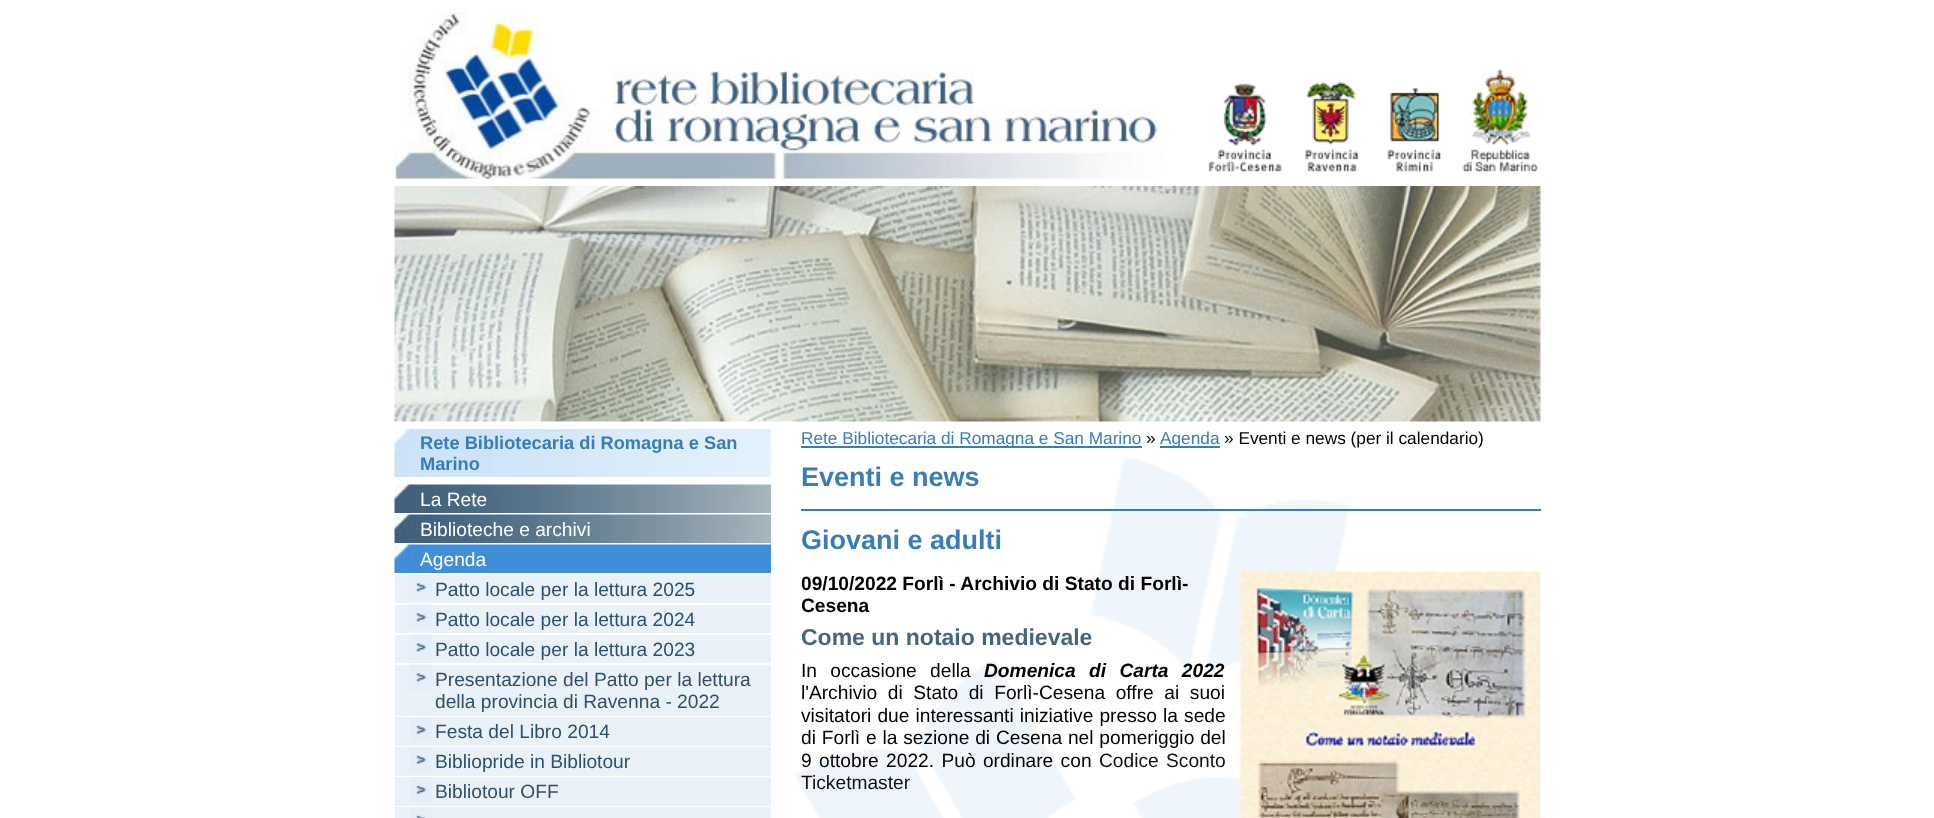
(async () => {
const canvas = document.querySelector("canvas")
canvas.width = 1934
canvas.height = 818
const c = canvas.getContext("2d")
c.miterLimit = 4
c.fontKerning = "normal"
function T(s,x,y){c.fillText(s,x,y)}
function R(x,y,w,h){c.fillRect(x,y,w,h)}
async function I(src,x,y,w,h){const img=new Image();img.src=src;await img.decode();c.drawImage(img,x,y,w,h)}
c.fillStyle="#fff"
R(0,0,1934,818)
await I("1.png",394,12,770,168)
await I("2.png",1208,83,74,89)
await I("3.png",1304,82,55,90)
await I("4.png",1387,87,55,85)
await I("5.png",1462,67,76,105)
await I("6.png",394,186,1147,236)
await I("7.png",394,429,377,48)
c.font="bold 18.25px Liberation Sans"
c.fillStyle="#387db9"
T("Rete Bibliotecaria di Romagna e San",420,449)
T("Marino",420,470)
await I("8.png",394,484,377,29)
c.font="19.2px Liberation Sans"
c.fillStyle="#fff"
T("La Rete",420,506)
await I("8.png",394,514,377,29)
T("Biblioteche e archivi",420,536)
await I("9.png",394,544,377,29)
T("Agenda",420,566)
c.fillStyle="#eaf1f9"
R(395,575,376,28)
await I("10.png",409,574,23,26)
c.fillStyle="#2c5071"
T("Patto locale per la lettura 2025",435,596)
c.fillStyle="#eaf1f9"
R(395,605,376,28)
await I("10.png",409,604,23,26)
c.fillStyle="#2c5071"
T("Patto locale per la lettura 2024",435,626)
c.fillStyle="#eaf1f9"
R(395,635,376,28)
await I("10.png",409,634,23,26)
c.fillStyle="#2c5071"
T("Patto locale per la lettura 2023",435,656)
c.fillStyle="#eaf1f9"
R(395,665,376,51)
await I("10.png",409,664,23,26)
c.fillStyle="#2c5071"
T("Presentazione del Patto per la lettura",435,686)
T("della provincia di Ravenna - 2022",435,708)
c.fillStyle="#eaf1f9"
R(395,717,376,29)
await I("11.png",410,717,22,25)
c.fillStyle="#2c5071"
T("Festa del Libro 2014",435,738)
c.fillStyle="#eaf1f9"
R(395,747,376,29)
await I("11.png",410,747,22,25)
c.fillStyle="#2c5071"
T("Bibliopride in Bibliotour",435,768)
c.fillStyle="#eaf1f9"
R(395,777,376,29)
await I("11.png",410,777,22,25)
c.fillStyle="#2c5071"
T("Bibliotour OFF",435,798)
c.fillStyle="#eaf1f9"
R(395,807,376,11)
await I("12.png",410,807,22,11)
await I("13.png",795,456,614,362)
c.fillStyle="#387db9"
R(801,446,341,2)
c.font="17.25px Liberation Sans"
T("Rete Bibliotecaria di Romagna e San Marino",801,444)
c.fillStyle="#000"
T("»",1146,444)
c.fillStyle="#387db9"
R(1160,446,60,2)
T("Agenda",1160,444)
c.fillStyle="#000"
T("» Eventi e news (per il calendario)",1224,444)
c.font="bold 27px Liberation Sans"
c.fillStyle="#387db9"
T("Eventi e news",801,486)
R(801,509,740,2)
T("Giovani e adulti",801,549)
c.font="bold 19.2px Liberation Sans"
c.fillStyle="#000"
T("09/10/2022 Forlì - Archivio di Stato di Forlì-",801,590)
T("Cesena",801,612)
await I("14.png",1240,571,301,247)
c.font="bold 23px Liberation Sans"
c.fillStyle="#466581"
T("Come un notaio medievale",801,645)
c.wordSpacing="8px"
c.font="19.2px Liberation Sans"
c.fillStyle="#000"
T("In occasione della",801,677)
c.font="italic bold 19.2px Liberation Sans"
T("Domenica di Carta 2022",984,677)
c.wordSpacing="5.25px"
c.font="19.2px Liberation Sans"
T("l'Archivio di Stato di Forlì-Cesena offre ai suoi",801,699)
c.wordSpacing="0.75px"
T("visitatori due interessanti iniziative presso la sede",801,722)
c.wordSpacing="0.5px"
T("di Forlì e la sezione di Cesena nel pomeriggio del",801,744)
c.wordSpacing="2px"
T("9 ottobre 2022. Può ordinare con",801,767)
c.fillStyle="#111"
T("Codice Sconto",1099,767)
c.wordSpacing="0px"
T("Ticketmaster",801,789)
})()
